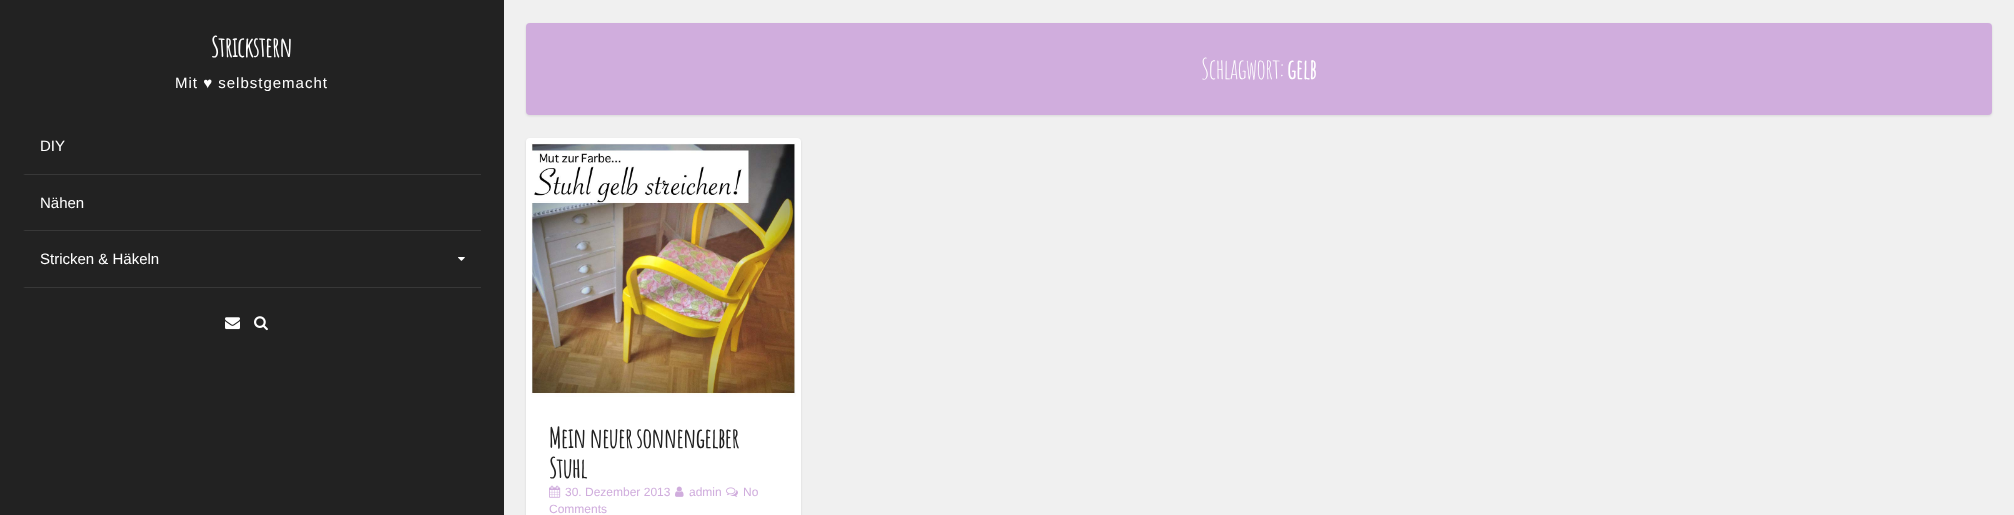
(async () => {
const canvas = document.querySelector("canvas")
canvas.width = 2014
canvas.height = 515
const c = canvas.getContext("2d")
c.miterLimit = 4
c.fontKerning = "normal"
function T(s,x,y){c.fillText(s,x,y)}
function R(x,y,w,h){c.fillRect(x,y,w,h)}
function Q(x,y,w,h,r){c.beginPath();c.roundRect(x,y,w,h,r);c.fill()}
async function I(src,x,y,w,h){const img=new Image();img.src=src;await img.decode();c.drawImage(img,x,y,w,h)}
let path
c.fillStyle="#f0f0f0"
R(0,0,2014,515)
c.fillStyle="#222"
R(0,0,504,515)
c.letterSpacing="-1px"
c.font="bold 28px Amatic SC"
c.fillStyle="#fff"
T("Strickstern",211,57)
c.letterSpacing="1px"
c.font="15px Liberation Sans"
T("Mit ♥ selbstgemacht",175,88)
c.fillStyle="#383838"
path = new Path2D("M481 175h-458l2-1h456z")
c.fill(path)
c.letterSpacing="0px"
c.fillStyle="#fff"
T("DIY",40,151)
c.fillStyle="#383838"
path = new Path2D("M481 231h-458l2-1h456z")
c.fill(path)
c.fillStyle="#fff"
T("Nähen",40,208)
c.fillStyle="#383838"
path = new Path2D("M481 288h-458l2-1h456z")
c.fill(path)
c.fillStyle="#fff"
T("Stricken & Häkeln",40,264)
await I("1.png",458,257,7,4)
await I("2.png",225,317,15,13)
await I("3.png",254,316,14,15)
c.fillStyle="#0000001a"
c.filter="blur(1px)"
c.beginPath()
c.roundRect(526,24,1466,92,4)
c.fill()
c.filter="none"
c.fillStyle="#d0addd"
Q(526,23,1466,92,4)
c.letterSpacing="-1px"
c.font="28px Amatic SC"
c.fillStyle="#fff"
T("Schlagwort:",1201,79)
c.font="bold 28px Amatic SC"
T("gelb",1287,79)
c.fillStyle="#0000001a"
c.filter="blur(1px)"
c.beginPath()
c.roundRect(526,139,275,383,4)
c.fill()
c.filter="none"
c.fillStyle="#fff"
Q(526,138,275,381,4)
await I("4.png",531,143,265,254)
c.fillStyle="#222"
T("Mein neuer sonnengelber",549,448)
T("Stuhl",549,478)
await I("5.png",726,487,12,10)
c.letterSpacing="0px"
c.font="12px Liberation Sans"
c.fillStyle="#d0addd"
T("No",743,496)
T("Comments",549,513)
await I("6.png",549,485,12,13)
T("30. Dezember 2013",565,496)
await I("7.png",675,486,9,11)
T("admin",689,496)
})()
